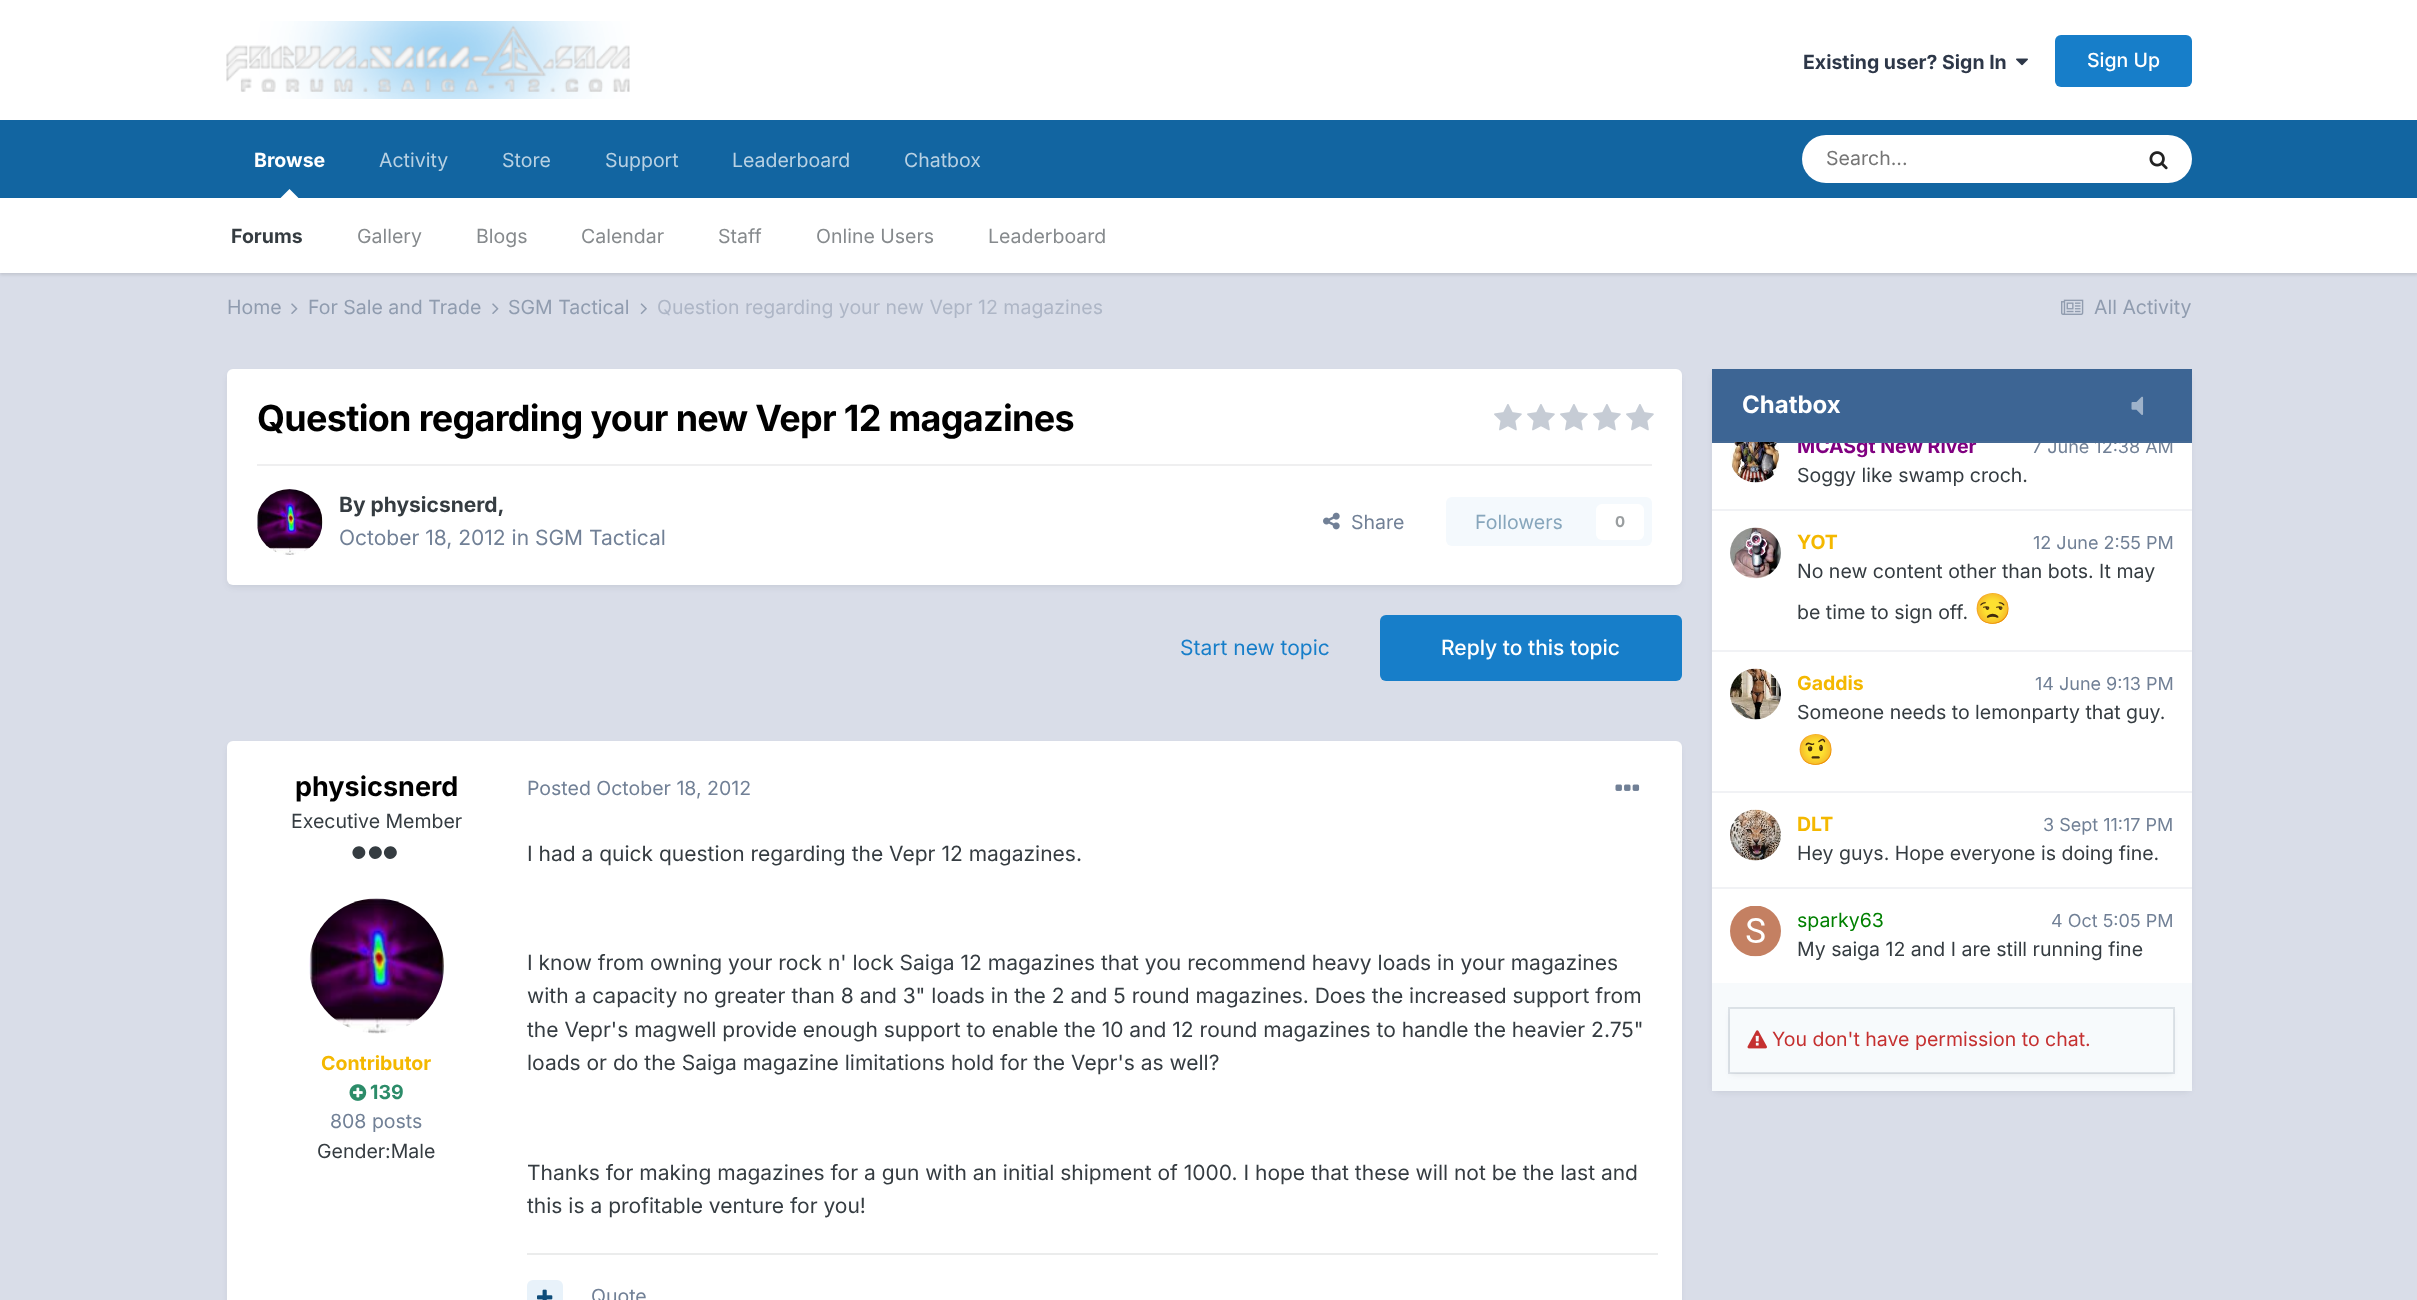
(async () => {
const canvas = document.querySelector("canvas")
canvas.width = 2417
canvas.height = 1300
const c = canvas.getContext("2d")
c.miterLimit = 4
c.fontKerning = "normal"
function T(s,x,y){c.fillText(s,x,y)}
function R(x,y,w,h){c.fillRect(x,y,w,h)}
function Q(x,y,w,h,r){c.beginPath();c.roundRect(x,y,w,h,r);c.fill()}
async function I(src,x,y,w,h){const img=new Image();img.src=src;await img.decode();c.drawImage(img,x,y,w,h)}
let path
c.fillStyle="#d9dde8"
R(0,0,2417,1300)
c.fillStyle="#fff"
R(0,0,2417,120)
await I("1.png",226,21,404,78)
c.font="bold 19.5px Inter"
c.fillStyle="#2d3748"
T("Existing user? Sign In",1803,69)
await I("2.png",2016,58,12,8)
c.fillStyle="#177ec9"
Q(2055,35,137,52,6)
c.font="500 19.5px Inter"
c.fillStyle="#fff"
T("Sign Up",2087,67)
c.fillStyle="#1265a1"
R(0,120,2417,78)
c.font="bold 19.5px Inter"
c.fillStyle="#fff"
T("Browse",254,167)
c.fillStyle="#0000001a"
c.filter="blur(1.5px)"
c.beginPath()
c.rect(0,200,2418,75)
c.fill()
c.filter="none"
c.fillStyle="#fff"
path = new Path2D("M298.5 198h-18l9-9z")
c.fill(path)
R(0,198,2417,75)
c.fillStyle="#353c41"
T("Forums",231,243)
c.font="19.5px Inter"
c.fillStyle="#868a8d"
T("Gallery",357,243)
T("Blogs",476,243)
T("Calendar",581,243)
T("Staff",718,243)
T("Online Users",816,243)
T("Leaderboard",988,243)
c.fillStyle="#b8d1e3"
T("Activity",379,167)
T("Store",502,167)
T("Support",605,167)
T("Leaderboard",732,167)
T("Chatbox",904,167)
c.fillStyle="#fff"
Q(1802,135,390,48,24)
c.fillStyle="#757575"
T("Search...",1826,165)
await I("3.png",2149,151,19,19)
c.fillStyle="#909caf"
T("Home",227,314)
await I("4.png",291,303,7,11)
T("For Sale and Trade",308,314)
await I("4.png",492,303,7,11)
T("SGM Tactical",508,314)
await I("5.png",640,303,7,12)
c.fillStyle="#aeb6c6"
T("Question regarding your new Vepr 12 magazines",657,314)
await I("6.png",2061,299,23,16)
c.fillStyle="#909caf"
T("All Activity",2094,314)
c.fillStyle="#2d37481a"
c.filter="blur(3px)"
c.beginPath()
c.roundRect(228,374,1452,213,5)
c.fill()
c.filter="none"
c.fillStyle="#fff"
Q(227,369,1455,216,6)
c.letterSpacing="-0.7px"
c.font="bold 36px Inter"
c.fillStyle="#000"
T("Question regarding your new Vepr 12 magazines",257,431)
await I("7.png",1494,404,28,27)
await I("7.png",1527,404,28,27)
await I("7.png",1560,404,28,27)
await I("7.png",1593,404,28,27)
await I("7.png",1626,404,28,27)
c.fillStyle="#efeff0"
R(257,464,1395,2)
await I("8.png",257,489,66,66)
c.letterSpacing="0px"
c.font="bold 21px Inter"
c.fillStyle="#353c41"
T("By physicsnerd,",339,512)
c.font="21px Inter"
c.fillStyle="#718096"
T("October 18, 2012 in SGM Tactical",339,545)
await I("9.png",1323,512,17,18)
c.font="19.5px Inter"
T("Share",1351,529)
c.fillStyle="#f4f9fd"
Q(1446,497,206,49,6)
c.fillStyle="#87a6bc"
T("Followers",1475,529)
c.fillStyle="#fff"
Q(1596,504,48,36,6)
c.font="bold 15px Inter"
c.fillStyle="#9a9ea0"
T("0",1615,527)
c.font="21px Inter"
c.fillStyle="#177ec9"
T("Start new topic",1180,655)
Q(1380,615,302,66,6)
c.font="500 21px Inter"
c.fillStyle="#fff"
T("Reply to this topic",1441,655)
c.fillStyle="#2d37481a"
c.filter="blur(3px)"
c.beginPath()
c.roundRect(228,746,1452,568,5)
c.fill()
c.filter="none"
c.fillStyle="#fff"
Q(227,741,1455,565,6)
c.font="bold 27px Inter"
c.fillStyle="#000"
T("physicsnerd",295,796)
c.font="19.5px Inter"
c.fillStyle="#353c41"
T("Executive Member",291,828)
path = new Path2D("M364.5 849.5c4 7-7 13.5-11 6.5c-4.5-7.5 6.5-14 11-6.5zm16.5 0c4 7-7 13.5-11 6.5c-4.5-7.5 6.5-14 11-6.5zm15 0c4 7-7 13.5-11 6.5c-4.5-7.5 6.5-14 11-6.5z")
c.fill(path)
await I("10.png",309,898,135,136)
c.font="bold 19.5px Inter"
c.fillStyle="#f4b800"
T("Contributor",321,1070)
await I("11.png",349,1084,18,17)
c.fillStyle="#2c8c69"
T("139",370,1099)
c.font="19.5px Inter"
c.fillStyle="#718096"
T("808 posts",330,1128)
c.fillStyle="#353c41"
T("Gender:Male",317,1158)
c.fillStyle="#718096"
T("Posted October 18, 2012",527,795)
await I("12.png",1615,784,25,7)
c.font="21px Inter"
c.fillStyle="#353c41"
T("I had a quick question regarding the Vepr 12 magazines.",527,861)
T("I know from owning your rock n' lock Saiga 12 magazines that you recommend heavy loads in your magazines",527,970)
T("with a capacity no greater than 8 and 3\" loads in the 2 and 5 round magazines. Does the increased support from",527,1003)
T("the Vepr's magwell provide enough support to enable the 10 and 12 round magazines to handle the heavier 2.75\"",527,1037)
T("loads or do the Saiga magazine limitations hold for the Vepr's as well?",527,1070)
T("Thanks for making magazines for a gun with an initial shipment of 1000. I hope that these will not be the last and",527,1180)
T("this is a profitable venture for you!",527,1213)
c.fillStyle="#ebecec"
R(527,1253,1131,2)
c.fillStyle="#e8f2fa"
Q(527,1280,36,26,6)
await I("13.png",537,1289,16,11)
c.font="19.5px Inter"
c.fillStyle="#718096"
T("Quote",591,1303)
c.fillStyle="#2d37481a"
c.filter="blur(3px)"
c.beginPath()
c.roundRect(1713,374,477,718,5)
c.fill()
c.filter="none"
c.fillStyle="#fff"
R(1712,443,480,540)
c.fillStyle="#3d6594"
R(1712,369,480,72)
c.fillStyle="#456994"
R(1712,441,480,2)
c.font="bold 24px Inter"
c.fillStyle="#fff"
T("Chatbox",1742,413)
await I("14.png",2131,396,13,19)
c.fillStyle="#f1f2f5"
R(1712,509,480,2)
await I("15.png",1730,442,50,41)
c.save()
c.beginPath()
c.rect(1712,443,480,540)
c.clip()
c.font="bold 19.5px Inter"
c.fillStyle="#800080"
T("MCASgt New River",1797,453)
c.font="18px Inter"
c.fillStyle="#718096"
T("7 June 12:38 AM",2032,453)
c.restore()
c.font="19.5px Inter"
c.fillStyle="#353c41"
T("Soggy like swamp croch.",1797,482)
c.fillStyle="#f1f2f5"
R(1712,650,480,2)
await I("16.png",1730,527,51,52)
c.font="bold 19.5px Inter"
c.fillStyle="#f4b800"
T("YOT",1797,549)
c.font="18px Inter"
c.fillStyle="#718096"
T("12 June 2:55 PM",2033,549)
c.font="19.5px Inter"
c.fillStyle="#353c41"
T("No new content other than bots. It may",1797,578)
T("be time to sign off.",1797,619)
c.font="30px Noto Color Emoji"
T("😒",1974,619)
c.fillStyle="#f1f2f5"
R(1712,791,480,2)
await I("17.png",1730,668,51,52)
c.font="bold 19.5px Inter"
c.fillStyle="#f4b800"
T("Gaddis",1797,690)
c.font="18px Inter"
c.fillStyle="#718096"
T("14 June 9:13 PM",2035,690)
c.font="19.5px Inter"
c.fillStyle="#353c41"
T("Someone needs to lemonparty that guy.",1797,719)
c.font="30px Noto Color Emoji"
T("🤨",1797,760)
c.fillStyle="#f1f2f5"
R(1712,887,480,2)
await I("18.png",1730,809,51,52)
c.font="bold 19.5px Inter"
c.fillStyle="#f4b800"
T("DLT",1797,831)
c.font="18px Inter"
c.fillStyle="#718096"
T("3 Sept 11:17 PM",2043,831)
c.font="19.5px Inter"
c.fillStyle="#353c41"
T("Hey guys. Hope everyone is doing fine.",1797,860)
await I("19.png",1730,906,51,51)
c.fillStyle="#008000"
T("sparky63",1797,927)
c.font="18px Inter"
c.fillStyle="#718096"
T("4 Oct 5:05 PM",2051,927)
c.font="19.5px Inter"
c.fillStyle="#353c41"
T("My saiga 12 and I are still running fine",1797,956)
c.fillStyle="#f7fafc"
R(1712,983,480,108)
c.save()
path = new Path2D("M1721 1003h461v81h-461zm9 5h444v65h-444z")
c.clip(path,"evenodd")
c.fillStyle="#2d37481a"
c.filter="blur(3px)"
c.beginPath()
c.rect(1731,1013,441,61)
c.fill()
c.filter="none"
c.restore()
c.strokeStyle="#71809633"
c.lineWidth=2
c.strokeRect(1729,1008,445,65)
await I("20.png",1747,1030,20,19)
c.fillStyle="#c53030"
T("You don't have permission to chat.",1772,1046)
})()
